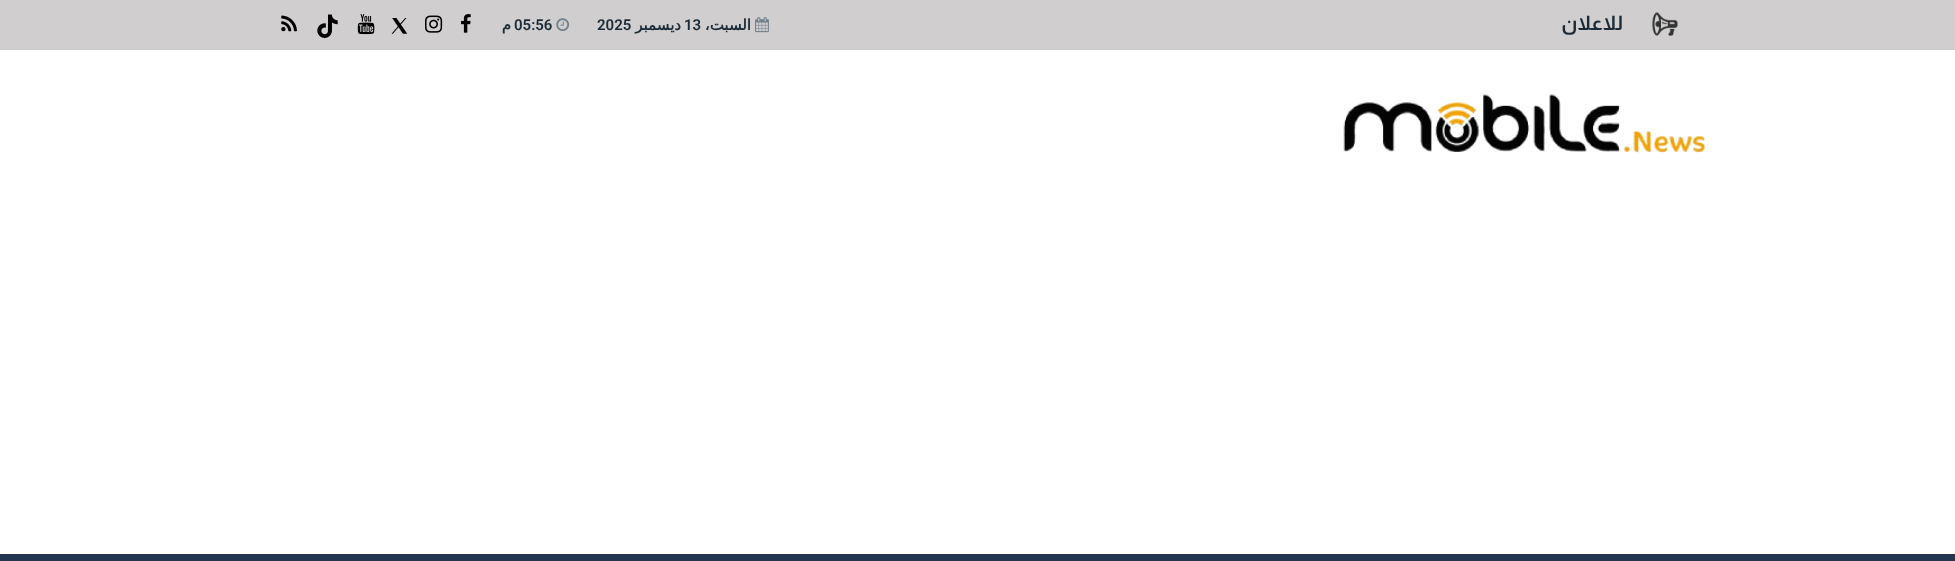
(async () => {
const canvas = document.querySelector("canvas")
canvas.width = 1955
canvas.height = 561
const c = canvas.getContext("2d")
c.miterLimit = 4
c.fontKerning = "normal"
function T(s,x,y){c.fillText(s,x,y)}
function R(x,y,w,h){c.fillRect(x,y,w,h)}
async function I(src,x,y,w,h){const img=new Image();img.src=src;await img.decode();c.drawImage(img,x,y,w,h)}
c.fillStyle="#fff"
R(0,0,1955,561)
c.fillStyle="#d0cece"
R(0,0,1955,50)
await I("1.png",1652,12,26,24)
c.direction="rtl"
c.font="bold 20px Almarai"
c.fillStyle="#1c2b37"
T("للاعلان",1623,30)
await I("2.png",755,17,14,16)
c.font="bold 15px DejaVu Sans"
T("السبت،",751,30)
c.direction="ltr"
c.font="600 15px Roboto"
T("13",684,30)
c.direction="rtl"
c.font="bold 15px DejaVu Sans"
T("ديسمبر",681,30)
c.direction="ltr"
c.font="600 15px Roboto"
T("2025",597,30)
await I("3.png",556,18,14,13)
T("05:56",514,30)
c.direction="rtl"
c.font="bold 15px DejaVu Sans"
T("م",511,30)
await I("4.png",461,14,10,19)
await I("5.png",425,15,18,18)
await I("6.png",391,18,17,16)
await I("7.png",357,14,18,21)
await I("8.png",317,14,21,24)
await I("9.png",281,15,16,17)
await I("10.png",1343,94,363,60)
c.fillStyle="#24364d"
R(0,554,1955,7)
})()
